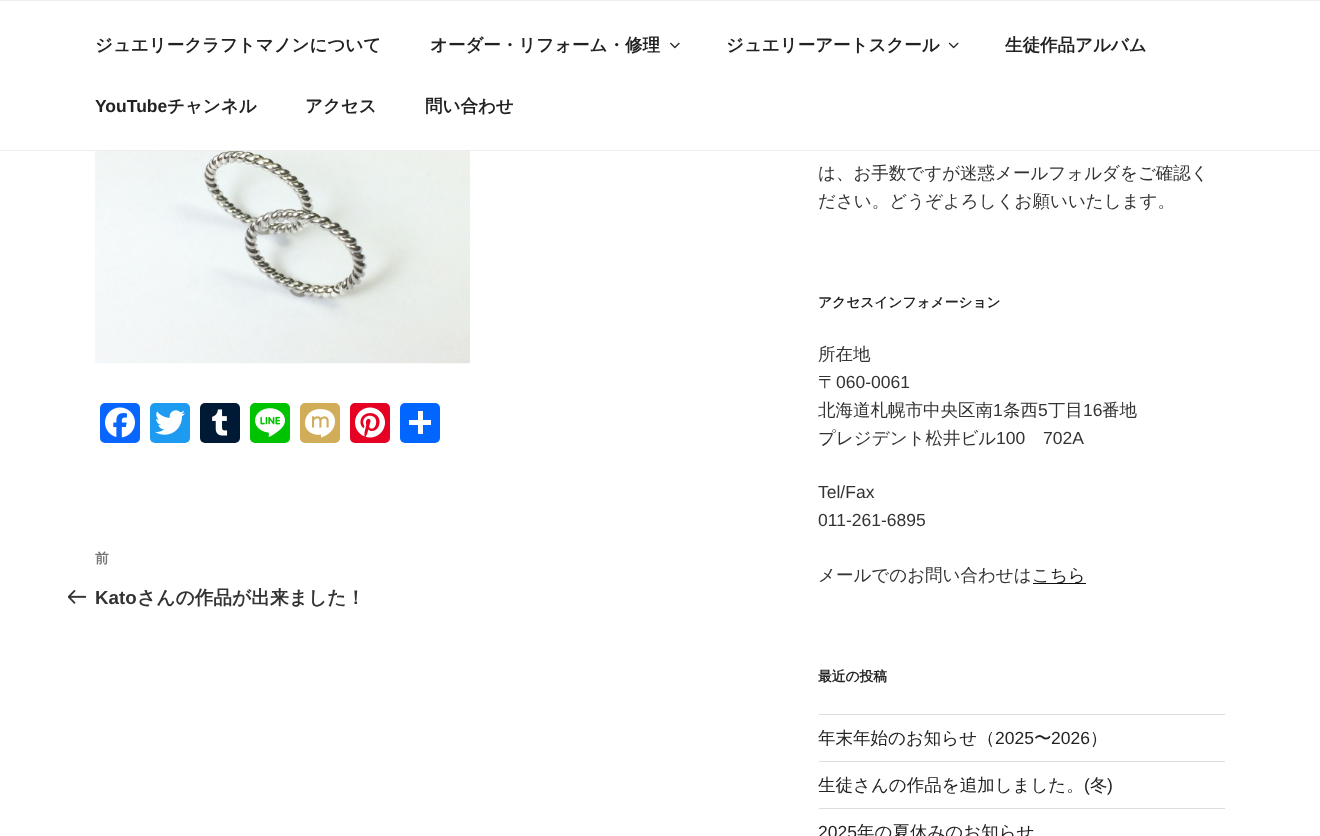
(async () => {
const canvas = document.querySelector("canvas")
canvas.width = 1320
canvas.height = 836
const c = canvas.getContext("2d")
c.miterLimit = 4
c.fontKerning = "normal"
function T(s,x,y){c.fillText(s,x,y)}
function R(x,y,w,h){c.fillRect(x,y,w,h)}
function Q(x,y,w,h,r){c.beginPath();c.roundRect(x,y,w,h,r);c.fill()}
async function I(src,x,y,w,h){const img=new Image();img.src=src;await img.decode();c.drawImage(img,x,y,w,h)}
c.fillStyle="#fff"
R(0,0,1320,836)
c.fillStyle="#eee"
R(0,0,1320,1)
R(0,150,1320,1)
c.font="bold 17.5px WenQuanYi Zen Hei"
c.fillStyle="#222"
T("ジュエリークラフトマノンについて",95,51)
T("オーダー・リフォーム・修理",430,51)
await I("1.png",670,42,10,7)
T("ジュエリーアートスクール",726,51)
await I("2.png",948,42,11,7)
T("生徒作品アルバム",1005,51)
c.font="bold 17.5px Liberation Sans"
T("YouTube",95,112)
c.font="bold 17.5px WenQuanYi Zen Hei"
T("チャンネル",167,112)
T("アクセス",305,112)
T("問い合わせ",425,112)
await I("3.png",95,151,375,213)
c.fillStyle="#0866ff"
Q(100,403,40,40,5)
await I("4.png",105,407,30,31)
c.fillStyle="#1d9bf0"
Q(150,403,40,40,5)
await I("5.png",155,410,30,25)
c.fillStyle="#001935"
Q(200,403,40,40,5)
await I("6.png",212,409,16,27)
c.fillStyle="#00c300"
Q(250,403,40,40,5)
await I("7.png",255,408,30,29)
c.fillStyle="#d1ad5a"
Q(300,403,40,40,5)
await I("8.png",305,409,30,29)
c.fillStyle="#e60023"
Q(350,403,40,40,5)
await I("9.png",355,407,30,31)
c.fillStyle="#0166ff"
Q(400,403,40,40,5)
c.fillStyle="#fff"
R(418,411,5,23)
R(409,420,22,5)
c.font="bold 13.75px WenQuanYi Zen Hei"
c.fillStyle="#767676"
T("前",95,563)
await I("10.png",68,590,18,14)
c.font="bold 18.75px Liberation Sans"
c.fillStyle="#333"
T("Kato",95,604)
c.font="bold 18.75px WenQuanYi Zen Hei"
T("さんの作品が出来ました！",137,604)
c.font="500 17.5px WenQuanYi Zen Hei"
T("は、お手数ですが迷惑メールフォルダをご確認く",818,179)
T("ださい。どうぞよろしくお願いいたします。",818,207)
c.font="bold 13.75px WenQuanYi Zen Hei"
c.fillStyle="#222"
T("アクセスインフォメーション",818,307)
c.font="500 17.5px WenQuanYi Zen Hei"
c.fillStyle="#333"
T("所在地",818,360)
T("〒",818,388)
c.font="17.5px Liberation Sans"
T("060-0061",836,388)
c.font="500 17.5px WenQuanYi Zen Hei"
T("北海道札幌市中央区南",818,416)
c.font="17.5px Liberation Sans"
T("1",993,416)
c.font="500 17.5px WenQuanYi Zen Hei"
T("条西",1003,416)
c.font="17.5px Liberation Sans"
T("5",1038,416)
c.font="500 17.5px WenQuanYi Zen Hei"
T("丁目",1048,416)
c.font="17.5px Liberation Sans"
T("16",1083,416)
c.font="500 17.5px WenQuanYi Zen Hei"
T("番地",1102,416)
T("プレジデント松井ビル",818,444)
c.font="17.5px Liberation Sans"
T("100",996,444)
T("702A",1043,444)
T("Tel/Fax",818,498)
T("011-261-6895",818,526)
c.font="500 17.5px WenQuanYi Zen Hei"
T("メールでのお問い合わせは",818,581)
c.fillStyle="#0f0f0f"
R(1033,583,53,1)
c.fillStyle="#222"
T("こちら",1032,581)
c.font="bold 13.75px WenQuanYi Zen Hei"
T("最近の投稿",818,681)
c.fillStyle="#ddd"
R(819,714,406,1)
R(819,761,406,1)
c.font="500 17.5px WenQuanYi Zen Hei"
c.fillStyle="#222"
T("年末年始のお知らせ（",818,744)
c.font="17.5px Liberation Sans"
T("2025",995,744)
c.font="500 17.5px WenQuanYi Zen Hei"
T("〜",1034,744)
c.font="17.5px Liberation Sans"
T("2026",1051,744)
c.font="500 17.5px WenQuanYi Zen Hei"
T("）",1090,744)
c.fillStyle="#ddd"
R(819,808,406,1)
c.fillStyle="#222"
T("生徒さんの作品を追加しました。",818,791)
c.font="17.5px Liberation Sans"
T("(",1084,791)
c.font="500 17.5px WenQuanYi Zen Hei"
T("冬",1090,791)
c.font="17.5px Liberation Sans"
T(")",1107,791)
T("2025",818,838)
c.font="500 17.5px WenQuanYi Zen Hei"
T("年の夏休みのお知らせ",857,838)
})()
